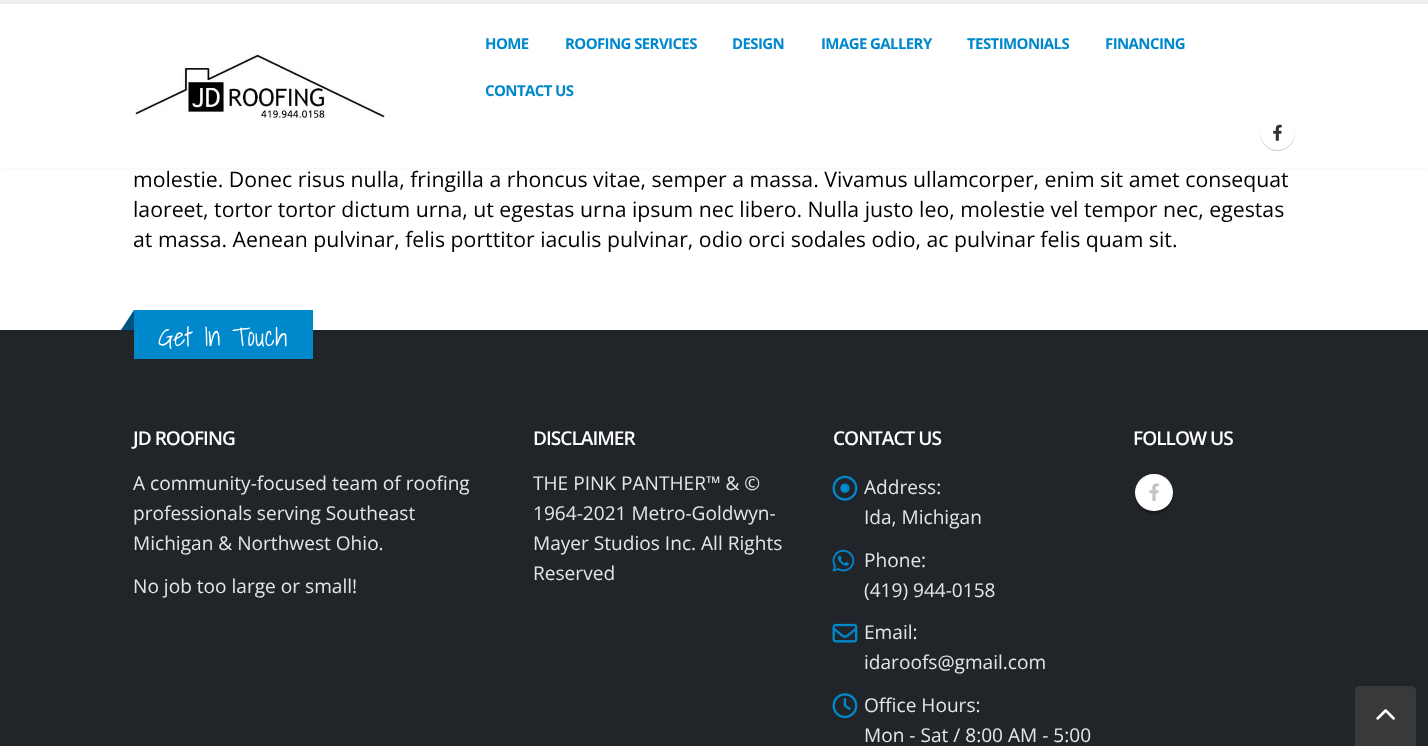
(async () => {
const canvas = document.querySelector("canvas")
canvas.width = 1428
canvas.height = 746
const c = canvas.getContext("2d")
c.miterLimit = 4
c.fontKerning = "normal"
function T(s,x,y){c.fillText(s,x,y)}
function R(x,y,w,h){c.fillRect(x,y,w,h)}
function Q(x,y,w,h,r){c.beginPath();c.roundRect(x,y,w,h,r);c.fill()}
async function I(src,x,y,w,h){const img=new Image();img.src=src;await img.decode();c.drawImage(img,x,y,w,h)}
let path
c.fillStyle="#fff"
R(0,0,1428,746)
c.fillStyle="#0000000f"
c.filter="blur(2px)"
c.beginPath()
c.rect(0,0,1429,168)
c.fill()
c.filter="none"
c.fillStyle="#fff"
R(0,4,1428,164)
c.fillStyle="#ededed"
R(0,0,1428,4)
await I("1.png",134,53,251,65)
c.letterSpacing="-0.6px"
c.font="bold 15px Open Sans"
c.fillStyle="#08c"
T("HOME",485,49)
T("ROOFING SERVICES",565,49)
T("DESIGN",732,49)
T("IMAGE GALLERY",821,49)
T("TESTIMONIALS",967,49)
T("FINANCING",1105,49)
T("CONTACT US",485,96)
c.fillStyle="#00000033"
c.filter="blur(0.5px)"
c.beginPath()
c.roundRect(1260,116,35,35,17.5)
c.fill()
c.filter="none"
c.fillStyle="#fff"
c.beginPath()
c.arc(1277.5,132.5,17.5,0,7)
c.fill()
await I("2.png",1273,124,9,17)
c.letterSpacing="0px"
c.font="21.25px Open Sans"
c.fillStyle="#000"
T("molestie. Donec risus nulla, fringilla a rhoncus vitae, semper a massa. Vivamus ullamcorper, enim sit amet consequat",133,187)
T("laoreet, tortor tortor dictum urna, ut egestas urna ipsum nec libero. Nulla justo leo, molestie vel tempor nec, egestas",133,217)
T("at massa. Aenean pulvinar, felis porttitor iaculis pulvinar, odio orci sodales odio, ac pulvinar felis quam sit.",133,247)
c.fillStyle="#212529"
R(0,330,1428,416)
c.fillStyle="#08c"
R(134,310,179,49)
c.fillStyle="#005580"
path = new Path2D("M134 310v20h-13z")
c.fill(path)
c.font="300 26px Shadows Into Light"
c.fillStyle="#fff"
T("Get In Touch",158,346)
c.letterSpacing="-1px"
c.font="600 19.1px Open Sans"
T("JD ROOFING",133,445)
c.letterSpacing="0px"
c.font="19.1px Open Sans"
c.fillStyle="#e5e5e5"
T("A community-focused team of roofing",133,490)
T("professionals serving Southeast",133,520)
T("Michigan & Northwest Ohio.",133,550)
T("No job too large or small!",133,593)
c.letterSpacing="-1px"
c.font="600 19.1px Open Sans"
c.fillStyle="#fff"
T("DISCLAIMER",533,445)
c.letterSpacing="0px"
c.font="19.1px Open Sans"
c.fillStyle="#e5e5e5"
T("THE PINK PANTHER™ & ©",533,490)
T("1964-2021 Metro-Goldwyn-",533,520)
T("Mayer Studios Inc. All Rights",533,550)
T("Reserved",533,580)
c.letterSpacing="-1px"
c.font="600 19.1px Open Sans"
c.fillStyle="#fff"
T("CONTACT US",833,445)
await I("3.png",832,475,26,26)
c.letterSpacing="0px"
c.font="19.1px Open Sans"
c.fillStyle="#e5e5e5"
T("Address:",864,494)
T("Ida, Michigan",864,524)
await I("4.png",832,549,23,23)
T("Phone:",864,567)
T("(419) 944-0158",864,597)
await I("5.png",832,623,26,20)
T("Email:",864,639)
T("idaroofs@gmail.com",864,669)
await I("6.png",832,693,26,26)
T("Office Hours:",864,712)
T("Mon - Sat / 8:00 AM - 5:00",864,742)
c.letterSpacing="-1px"
c.font="600 19.1px Open Sans"
c.fillStyle="#fff"
T("FOLLOW US",1133,445)
c.fillStyle="#0000004d"
c.filter="blur(1px)"
c.beginPath()
c.roundRect(1135,476,38,38,19)
c.fill()
c.filter="none"
c.fillStyle="#fff"
Q(1135,474,38,37,18.5)
await I("7.png",1149,483,10,18)
c.fillStyle="#38393a"
c.beginPath()
c.roundRect(1355,686,61,60,[5,5,0,0])
c.fill()
await I("8.png",1376,709,19,11)
})()
